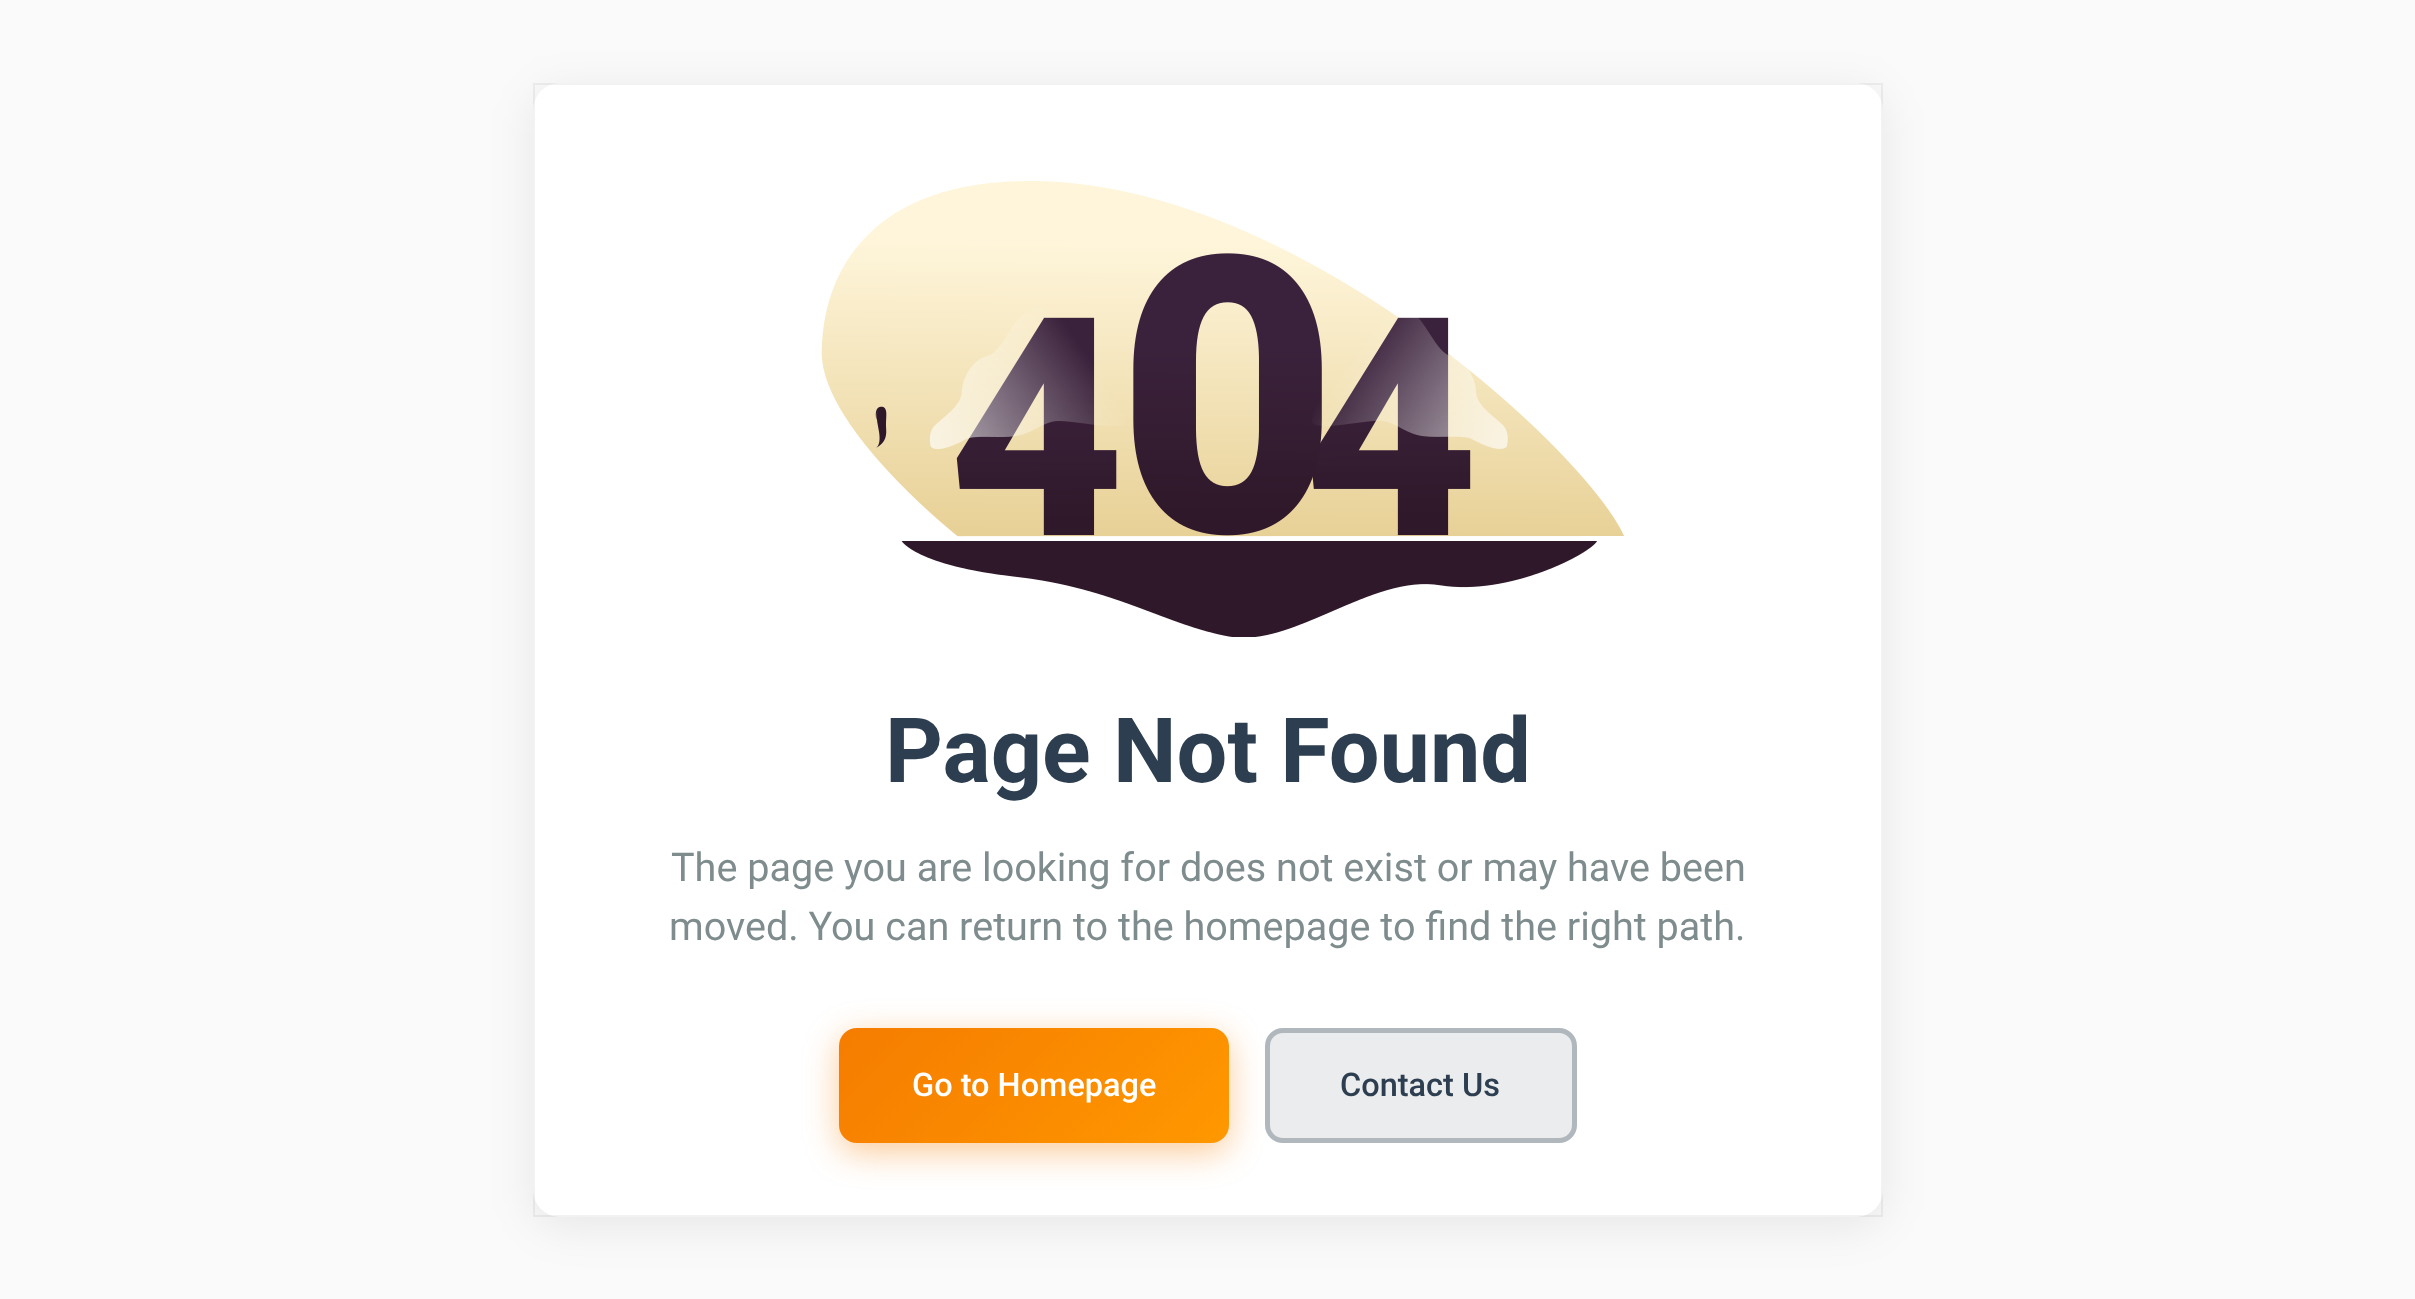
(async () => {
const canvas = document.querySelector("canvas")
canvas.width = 2415
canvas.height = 1299
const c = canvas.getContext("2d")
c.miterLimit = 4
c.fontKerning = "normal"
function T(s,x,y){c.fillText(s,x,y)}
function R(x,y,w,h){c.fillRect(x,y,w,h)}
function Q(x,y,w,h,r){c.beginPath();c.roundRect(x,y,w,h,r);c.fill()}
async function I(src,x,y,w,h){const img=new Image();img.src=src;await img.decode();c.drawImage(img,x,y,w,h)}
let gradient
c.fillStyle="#fafafa"
R(0,0,2415,1299)
c.fillStyle="#00000014"
c.filter="blur(22.5px)"
c.beginPath()
c.roundRect(533,92,1350,1134,27)
c.fill()
c.filter="none"
c.fillStyle="#fff"
Q(533,83,1350,1134,27)
c.strokeStyle="#0000000d"
c.lineWidth=2
c.strokeRect(534,84,1348,1132)
await I("1.png",821,181,803,456)
c.font="bold 90px Roboto"
c.fillStyle="#2c3e50"
T("Page Not Found",885,782)
c.font="39.6px Roboto"
c.fillStyle="#7f8c8d"
T("The page you are looking for does not exist or may have been",671,881)
T("moved. You can return to the homepage to find the right path.",669,940)
c.fillStyle="#f57c0066"
c.filter="blur(17px)"
c.beginPath()
c.roundRect(839,1037,390,115,18)
c.fill()
c.filter="none"
gradient = c.createLinearGradient(908,960,1160,1212)
gradient.addColorStop(0,"#f57c00")
gradient.addColorStop(1,"#ff9800")
c.fillStyle = gradient
Q(839,1028,390,115,18)
c.font="500 32.5px Roboto"
c.fillStyle="#fff"
T("Go to Homepage",912,1096)
c.fillStyle="#eaeced"
Q(1265,1028,312,115,18)
c.beginPath()
c.roundRect(1267.5,1030.5,307,110,15.5)
c.strokeStyle="#2c3e504d"
c.lineWidth=5
c.stroke()
c.fillStyle="#2c3e50"
T("Contact Us",1340,1096)
})()
